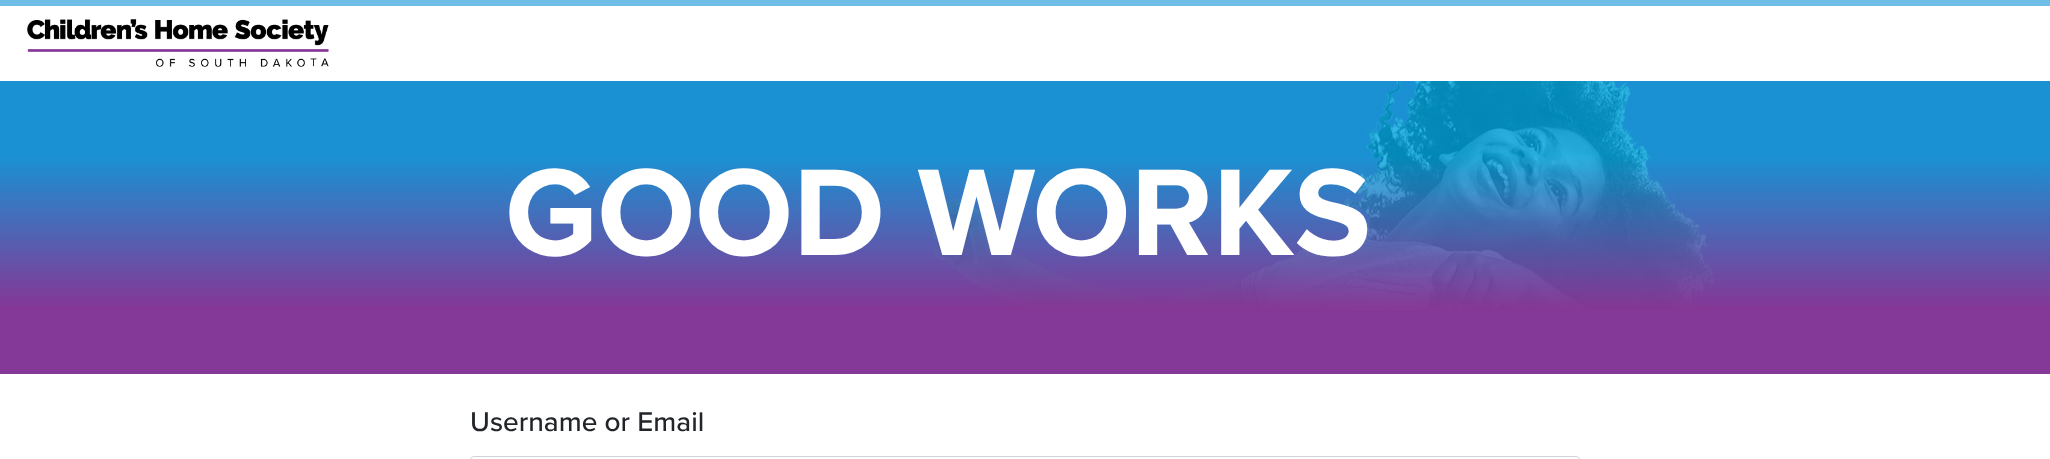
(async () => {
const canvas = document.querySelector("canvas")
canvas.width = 2050
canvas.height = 459
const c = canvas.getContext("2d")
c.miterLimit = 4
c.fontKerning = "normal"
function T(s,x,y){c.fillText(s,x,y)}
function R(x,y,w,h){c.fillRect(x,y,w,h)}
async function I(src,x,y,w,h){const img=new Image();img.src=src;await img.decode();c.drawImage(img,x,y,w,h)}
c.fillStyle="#fff"
R(0,0,2050,459)
c.fillStyle="#843998"
R(0,81,2050,293)
c.fillStyle="#6fbee5"
R(0,0,2050,6)
await I("1.png",27,19,302,48)
await I("2.png",0,81,2050,229)
c.font="bold 128px Proxima Nova"
c.fillStyle="#fff"
T("GOOD WORKS",505,255)
c.font="500 28px Proxima Nova"
c.fillStyle="#212529"
T("Username or Email",470,431)
c.beginPath()
c.roundRect(470.5,456.5,1109,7,3.5)
c.strokeStyle="#ced4da"
c.stroke()
})()
